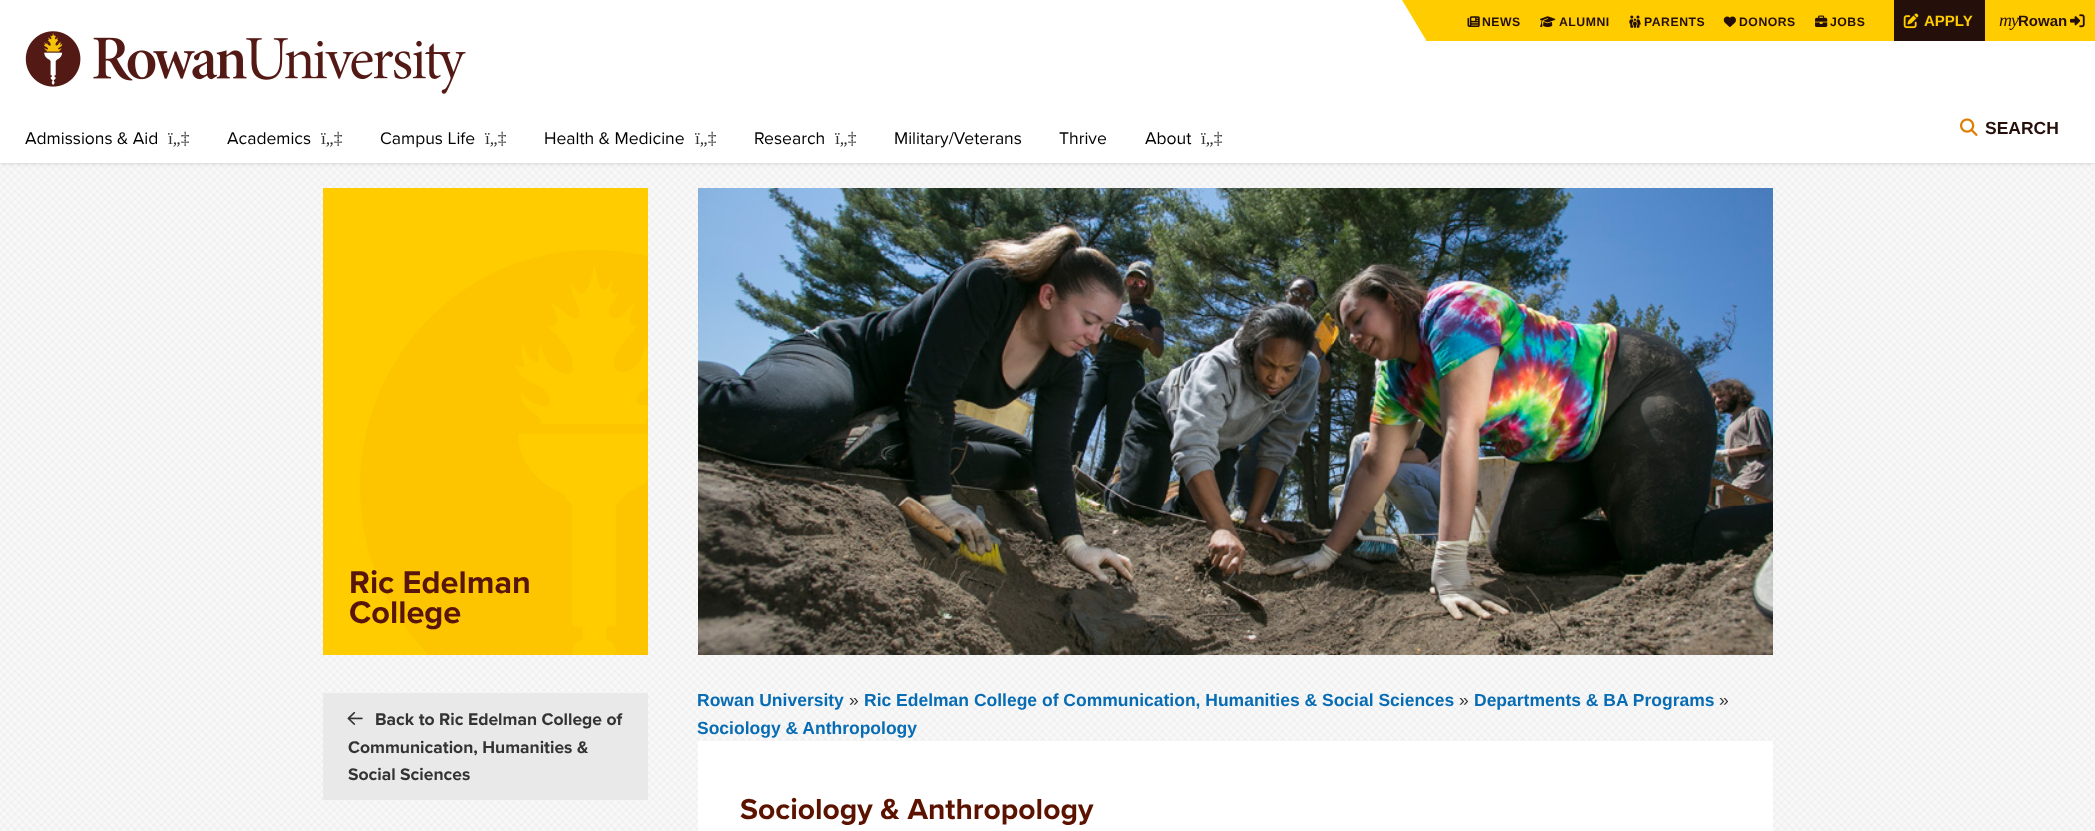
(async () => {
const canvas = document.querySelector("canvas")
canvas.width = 2095
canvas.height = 831
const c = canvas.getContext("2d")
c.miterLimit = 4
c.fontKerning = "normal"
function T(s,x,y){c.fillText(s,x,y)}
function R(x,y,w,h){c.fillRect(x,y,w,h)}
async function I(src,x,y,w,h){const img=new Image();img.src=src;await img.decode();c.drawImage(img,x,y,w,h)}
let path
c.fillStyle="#fff"
R(0,0,2095,831)
await I("1.png",0,163,2095,668)
c.fillStyle="#00000030"
c.filter="blur(2px)"
c.beginPath()
c.rect(0,0,2095,163)
c.fill()
c.filter="none"
c.fillStyle="#fff"
R(0,0,2095,163)
c.fillStyle="#fc0"
R(1426,0,669,41)
path = new Path2D("M1426 0h-24l24 40z")
c.fill(path)
await I("2.png",1467,16,13,11)
c.letterSpacing="0.5px"
c.font="bold 12.25px Liberation Sans"
c.fillStyle="#250f0b"
T("NEWS",1482,26)
await I("3.png",1540,16,16,11)
T("ALUMNI",1559,26)
await I("4.png",1629,15,12,13)
T("PARENTS",1644,26)
await I("5.png",1723,16,13,11)
T("DONORS",1739,26)
await I("6.png",1815,15,13,12)
T("JOBS",1830,26)
R(1894,0,91,41)
await I("7.png",1903,13,16,16)
c.letterSpacing="0px"
c.font="bold 15px Liberation Sans"
c.fillStyle="#fc0"
T("APPLY",1924,26)
c.letterSpacing="-1px"
c.font="italic 18px Liberation Serif"
c.fillStyle="#250f0b"
T("my",1999,26)
c.letterSpacing="0px"
c.font="bold 15px Liberation Sans"
T("Rowan",2018,26)
await I("8.png",2070,14,15,14)
await I("9.png",25,31,441,63)
await I("10.png",1960,118,18,18)
c.font="bold 17.5px Liberation Sans"
T("SEARCH",1985,134)
c.font="17.5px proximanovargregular"
c.fillStyle="#000"
T("Admissions & Aid",25,144)
c.font="17.5px Liberation Serif"
c.fillStyle="#333"
T("ï„‡",168,144)
c.font="17.5px proximanovargregular"
c.fillStyle="#000"
T("Academics",227,144)
c.font="17.5px Liberation Serif"
c.fillStyle="#333"
T("ï„‡",321,144)
c.font="17.5px proximanovargregular"
c.fillStyle="#000"
T("Campus Life",380,144)
c.font="17.5px Liberation Serif"
c.fillStyle="#333"
T("ï„‡",485,144)
c.font="17.5px proximanovargregular"
c.fillStyle="#000"
T("Health & Medicine",544,144)
c.font="17.5px Liberation Serif"
c.fillStyle="#333"
T("ï„‡",695,144)
c.font="17.5px proximanovargregular"
c.fillStyle="#000"
T("Research",754,144)
c.font="17.5px Liberation Serif"
c.fillStyle="#333"
T("ï„‡",835,144)
c.font="17.5px proximanovargregular"
c.fillStyle="#000"
T("Military/Veterans",894,144)
T("Thrive",1059,144)
T("About",1145,144)
c.font="17.5px Liberation Serif"
c.fillStyle="#333"
T("ï„‡",1201,144)
c.fillStyle="#fc0"
R(323,188,325,467)
await I("11.png",360,250,288,405)
c.font="bold 32.5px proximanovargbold"
c.fillStyle="#57150b"
T("Ric Edelman",349,593)
T("College",349,623)
c.fillStyle="#e9e9e9"
R(323,693,325,107)
await I("12.png",347,711,16,14)
c.font="bold 17.5px proximanovargbold"
c.fillStyle="#333"
T("Back to Ric Edelman College of",375,725)
T("Communication, Humanities &",348,753)
T("Social Sciences",348,780)
await I("13.png",698,188,1075,467)
c.font="bold 17.5px Liberation Sans"
c.fillStyle="#076cb3"
T("Rowan University",697,706)
c.font="17.5px Liberation Sans"
c.fillStyle="#333"
T("»",849,706)
c.font="bold 17.5px Liberation Sans"
c.fillStyle="#076cb3"
T("Ric Edelman College of Communication, Humanities & Social Sciences",864,706)
c.font="17.5px Liberation Sans"
c.fillStyle="#333"
T("»",1459,706)
c.font="bold 17.5px Liberation Sans"
c.fillStyle="#076cb3"
T("Departments & BA Programs",1474,706)
c.font="17.5px Liberation Sans"
c.fillStyle="#333"
T("»",1719,706)
c.font="bold 17.5px Liberation Sans"
c.fillStyle="#076cb3"
T("Sociology & Anthropology",697,734)
c.fillStyle="#fff"
R(698,741,1075,90)
c.font="bold 30px proximanovargbold"
c.fillStyle="#5b1300"
T("Sociology & Anthropology",740,819)
})()
